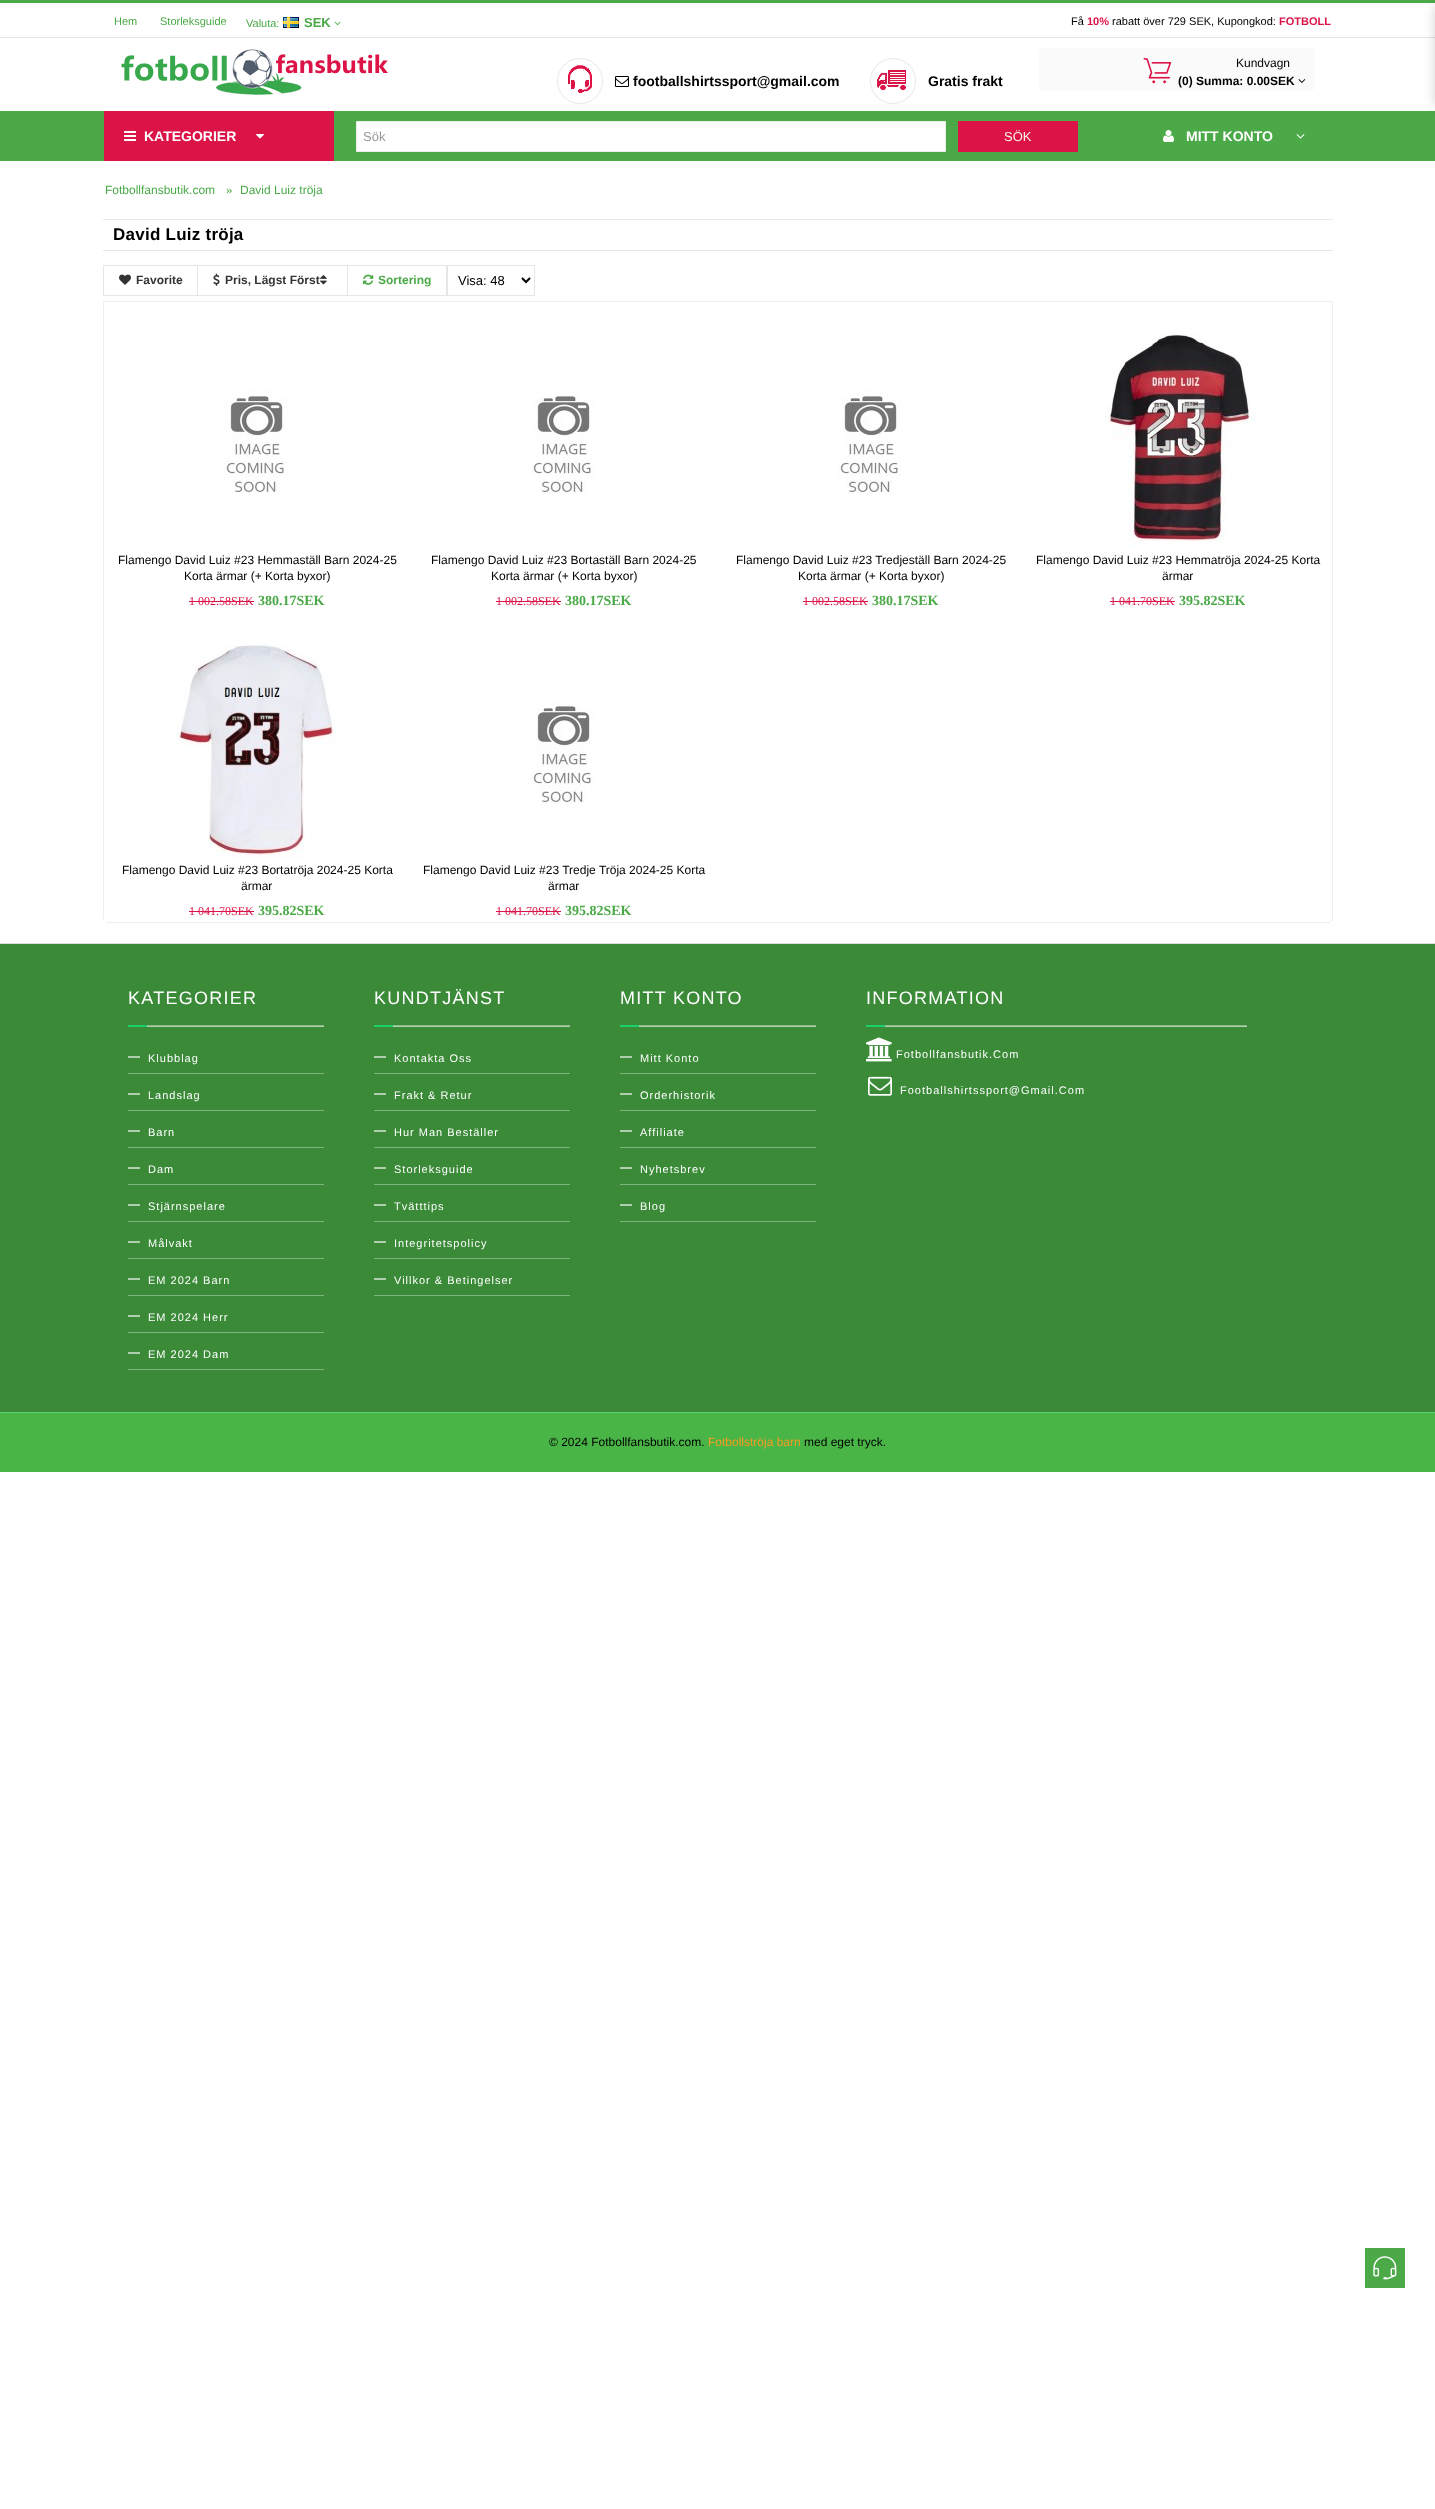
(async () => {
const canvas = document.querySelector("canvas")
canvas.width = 1435
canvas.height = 2509
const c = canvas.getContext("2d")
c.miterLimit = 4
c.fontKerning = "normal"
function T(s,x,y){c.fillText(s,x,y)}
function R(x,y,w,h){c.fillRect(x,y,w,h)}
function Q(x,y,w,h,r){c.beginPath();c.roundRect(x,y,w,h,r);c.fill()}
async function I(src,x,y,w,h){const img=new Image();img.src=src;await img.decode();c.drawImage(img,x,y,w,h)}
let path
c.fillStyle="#fff"
R(0,0,1435,2509)
c.fillStyle="#4ba948"
R(0,0,1435,3)
c.fillStyle="#dfe4eb"
R(0,37,1435,1)
c.font="11px Liberation Sans"
c.fillStyle="#4ba948"
T("Hem",114,25)
T("Storleksguide",160,25)
T("Valuta:",246,27)
await I("1.png",283,17,16,11)
c.font="bold 13px Liberation Sans"
T("SEK",304,27)
await I("2.png",334,21,7,5)
c.font="11px Liberation Sans"
c.fillStyle="#000"
T("Få",1071,25)
c.font="bold 11px Liberation Sans"
c.fillStyle="#db1346"
T("10%",1087,25)
c.font="11px Liberation Sans"
c.fillStyle="#000"
T("rabatt över 729 SEK, Kupongkod:",1112,25)
c.font="bold 11px Liberation Sans"
c.fillStyle="#db1346"
T("FOTBOLL",1279,25)
await I("3.png",121,49,267,46)
await I("4.png",557,58,46,46)
await I("5.png",615,76,14,11)
c.font="bold 14px Liberation Sans"
c.fillStyle="#000"
T("footballshirtssport@gmail.com",633,86)
await I("6.png",870,58,46,46)
T("Gratis frakt",928,86)
c.fillStyle="#fafafa"
Q(1039,48,276,43,5)
await I("7.png",1143,57,29,27)
c.font="12px Liberation Sans"
c.fillStyle="#000"
T("Kundvagn",1236,67)
c.font="bold 12px Liberation Sans"
T("(0) Summa: 0.00SEK",1178,85)
await I("8.png",1298,79,8,4)
c.fillStyle="#4ba948"
R(0,111,1435,50)
c.fillStyle="#0000002e"
c.filter="blur(6px)"
c.beginPath()
c.rect(1435,6,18,100)
c.fill()
c.filter="none"
c.fillStyle="#db1346"
R(104,111,230,50)
await I("9.png",124,131,12,10)
c.font="bold 14px Liberation Sans"
c.fillStyle="#fff"
T("KATEGORIER",144,141)
await I("10.png",256,134,8,5)
c.beginPath()
c.rect(356.5,121.5,589,30)
c.fill()
c.strokeStyle="#ededed"
c.stroke()
c.font="13px Liberation Sans"
c.fillStyle="#999"
T("Sök",363,141)
c.fillStyle="#db1346"
R(958,121,120,31)
c.fillStyle="#fef4e9"
T("SÖK",1004,141)
await I("11.png",1163,130,11,12)
c.font="bold 14px Liberation Sans"
c.fillStyle="#fff"
T("MITT KONTO",1186,141)
await I("12.png",1296,134,9,5)
c.fillStyle="#eaeaea"
R(103,219,1230,1)
c.font="12px Liberation Sans"
c.fillStyle="#4ba948"
T("Fotbollfansbutik.com",105,194)
c.font="13px Liberation Serif"
T("»",226,194)
c.font="12px Liberation Sans"
T("David Luiz tröja",240,194)
c.fillStyle="#e6e6e6"
R(103,250,1230,1)
c.letterSpacing="0.25px"
c.font="bold 17px Liberation Sans"
c.fillStyle="#000"
T("David Luiz tröja",113,240)
c.strokeStyle="#e6e6e6"
c.strokeRect(103.5,265.5,94,30)
await I("13.png",119,274,12,11)
c.letterSpacing="0px"
c.font="bold 12px Liberation Sans"
c.fillStyle="#333"
T("Favorite",136,284)
c.fillStyle="#e6e6e6"
R(198,265,249,1)
R(347,265,1,31)
R(198,295,150,1)
await I("14.png",213,273,7,13)
c.fillStyle="#333"
T("Pris, Lägst Först",225,284)
await I("15.png",320,275,7,10)
c.fillStyle="#e6e6e6"
R(446,265,1,31)
R(348,295,99,1)
await I("16.png",363,274,11,11)
c.fillStyle="#4ba948"
T("Sortering",378,284)
c.strokeRect(447.5,265.5,87,30)
path = new Path2D("M522 278l4 4l4-4")
c.strokeStyle="#000"
c.lineWidth=2
c.stroke(path)
c.font="13px Liberation Sans"
c.fillStyle="#000"
T("Visa: 48",458,285)
c.beginPath()
c.roundRect(103.5,301.5,1229,621,[0,0,4.5,4.5])
c.strokeStyle="#eee"
c.lineWidth=1
c.stroke()
await I("17.png",224,390,64,104)
c.font="12px Liberation Sans"
T("Flamengo David Luiz #23 Hemmaställ Barn 2024-25",118,564)
T("Korta ärmar (+ Korta byxor)",184,580)
c.font="12px Liberation Serif"
c.fillStyle="#db1346"
T("1 002.58SEK",189,605)
R(189,601,65,1)
c.font="bold 14px Liberation Serif"
c.fillStyle="#4ba948"
T("380.17SEK",258,605)
await I("17.png",531,390,64,104)
c.font="12px Liberation Sans"
c.fillStyle="#000"
T("Flamengo David Luiz #23 Bortaställ Barn 2024-25",431,564)
T("Korta ärmar (+ Korta byxor)",491,580)
c.font="12px Liberation Serif"
c.fillStyle="#db1346"
T("1 002.58SEK",496,605)
R(496,601,65,1)
c.font="bold 14px Liberation Serif"
c.fillStyle="#4ba948"
T("380.17SEK",565,605)
await I("17.png",838,390,64,104)
c.font="12px Liberation Sans"
c.fillStyle="#000"
T("Flamengo David Luiz #23 Tredjeställ Barn 2024-25",736,564)
T("Korta ärmar (+ Korta byxor)",798,580)
c.font="12px Liberation Serif"
c.fillStyle="#db1346"
T("1 002.58SEK",803,605)
R(803,601,65,1)
c.font="bold 14px Liberation Serif"
c.fillStyle="#4ba948"
T("380.17SEK",872,605)
await I("18.png",1105,334,152,216)
c.font="12px Liberation Sans"
c.fillStyle="#000"
T("Flamengo David Luiz #23 Hemmatröja 2024-25 Korta",1036,564)
T("ärmar",1162,580)
c.font="12px Liberation Serif"
c.fillStyle="#db1346"
T("1 041.70SEK",1110,605)
R(1110,601,65,1)
c.font="bold 14px Liberation Serif"
c.fillStyle="#4ba948"
T("395.82SEK",1179,605)
c.fillStyle="#fff"
R(104,919,3,3)
await I("19.png",176,644,160,216)
c.font="12px Liberation Sans"
c.fillStyle="#000"
T("Flamengo David Luiz #23 Bortatröja 2024-25 Korta",122,874)
T("ärmar",241,890)
c.font="12px Liberation Serif"
c.fillStyle="#db1346"
T("1 041.70SEK",189,915)
R(189,911,65,1)
c.font="bold 14px Liberation Serif"
c.fillStyle="#4ba948"
T("395.82SEK",258,915)
await I("17.png",531,700,64,104)
c.font="12px Liberation Sans"
c.fillStyle="#000"
T("Flamengo David Luiz #23 Tredje Tröja 2024-25 Korta",423,874)
T("ärmar",548,890)
c.font="12px Liberation Serif"
c.fillStyle="#db1346"
T("1 041.70SEK",496,915)
R(496,911,65,1)
c.font="bold 14px Liberation Serif"
c.fillStyle="#4ba948"
T("395.82SEK",565,915)
c.fillStyle="#3a8a38"
R(0,944,1435,468)
c.fillStyle="#dedede"
R(0,943,1435,1)
await I("20.png",128,1025,196,2)
c.letterSpacing="1.25px"
c.font="18px Liberation Sans"
c.fillStyle="#fff"
T("KATEGORIER",128,1004)
await I("21.png",128,1056,196,18)
c.letterSpacing="1px"
c.font="11px Liberation Sans"
T("Klubblag",148,1062)
await I("21.png",128,1093,196,18)
T("Landslag",148,1099)
await I("21.png",128,1130,196,18)
T("Barn",148,1136)
await I("21.png",128,1167,196,18)
T("Dam",148,1173)
await I("21.png",128,1204,196,18)
T("Stjärnspelare",148,1210)
await I("21.png",128,1241,196,18)
T("Målvakt",148,1247)
await I("21.png",128,1278,196,18)
T("EM 2024 Barn",148,1284)
await I("21.png",128,1315,196,18)
T("EM 2024 Herr",148,1321)
await I("21.png",128,1352,196,18)
T("EM 2024 Dam",148,1358)
await I("20.png",374,1025,196,2)
c.letterSpacing="1.25px"
c.font="18px Liberation Sans"
T("KUNDTJÄNST",374,1004)
await I("21.png",374,1056,196,18)
c.letterSpacing="1px"
c.font="11px Liberation Sans"
T("Kontakta Oss",394,1062)
await I("21.png",374,1093,196,18)
T("Frakt & Retur",394,1099)
await I("21.png",374,1130,196,18)
T("Hur Man Beställer",394,1136)
await I("21.png",374,1167,196,18)
T("Storleksguide",394,1173)
await I("21.png",374,1204,196,18)
T("Tvätttips",394,1210)
await I("21.png",374,1241,196,18)
T("Integritetspolicy",394,1247)
await I("21.png",374,1278,196,18)
T("Villkor & Betingelser",394,1284)
await I("20.png",620,1025,196,2)
c.letterSpacing="1.25px"
c.font="18px Liberation Sans"
T("MITT KONTO",620,1004)
await I("21.png",620,1056,196,18)
c.letterSpacing="1px"
c.font="11px Liberation Sans"
T("Mitt Konto",640,1062)
await I("21.png",620,1093,196,18)
T("Orderhistorik",640,1099)
await I("21.png",620,1130,196,18)
T("Affiliate",640,1136)
await I("21.png",620,1167,196,18)
T("Nyhetsbrev",640,1173)
await I("21.png",620,1204,196,18)
T("Blog",640,1210)
await I("22.png",866,1025,381,2)
c.letterSpacing="1.25px"
c.font="18px Liberation Sans"
T("INFORMATION",866,1004)
await I("23.png",866,1037,26,25)
c.letterSpacing="1px"
c.font="11px Liberation Sans"
T("Fotbollfansbutik.Com",896,1058)
await I("24.png",868,1076,24,20)
T("Footballshirtssport@Gmail.Com",900,1094)
c.fillStyle="#4ab547"
R(0,1413,1435,59)
c.fillStyle="#5ad671"
R(0,1412,1435,1)
c.letterSpacing="0px"
c.font="12px Liberation Sans"
c.fillStyle="#000"
T("© 2024 Fotbollfansbutik.com.",549,1446)
c.fillStyle="#f79a23"
T("Fotbollströja barn",708,1446)
c.fillStyle="#000"
T("med eget tryck.",804,1446)
c.fillStyle="#4ba948"
R(1365,2248,40,40)
await I("25.png",1373,2256,24,24)
})()
